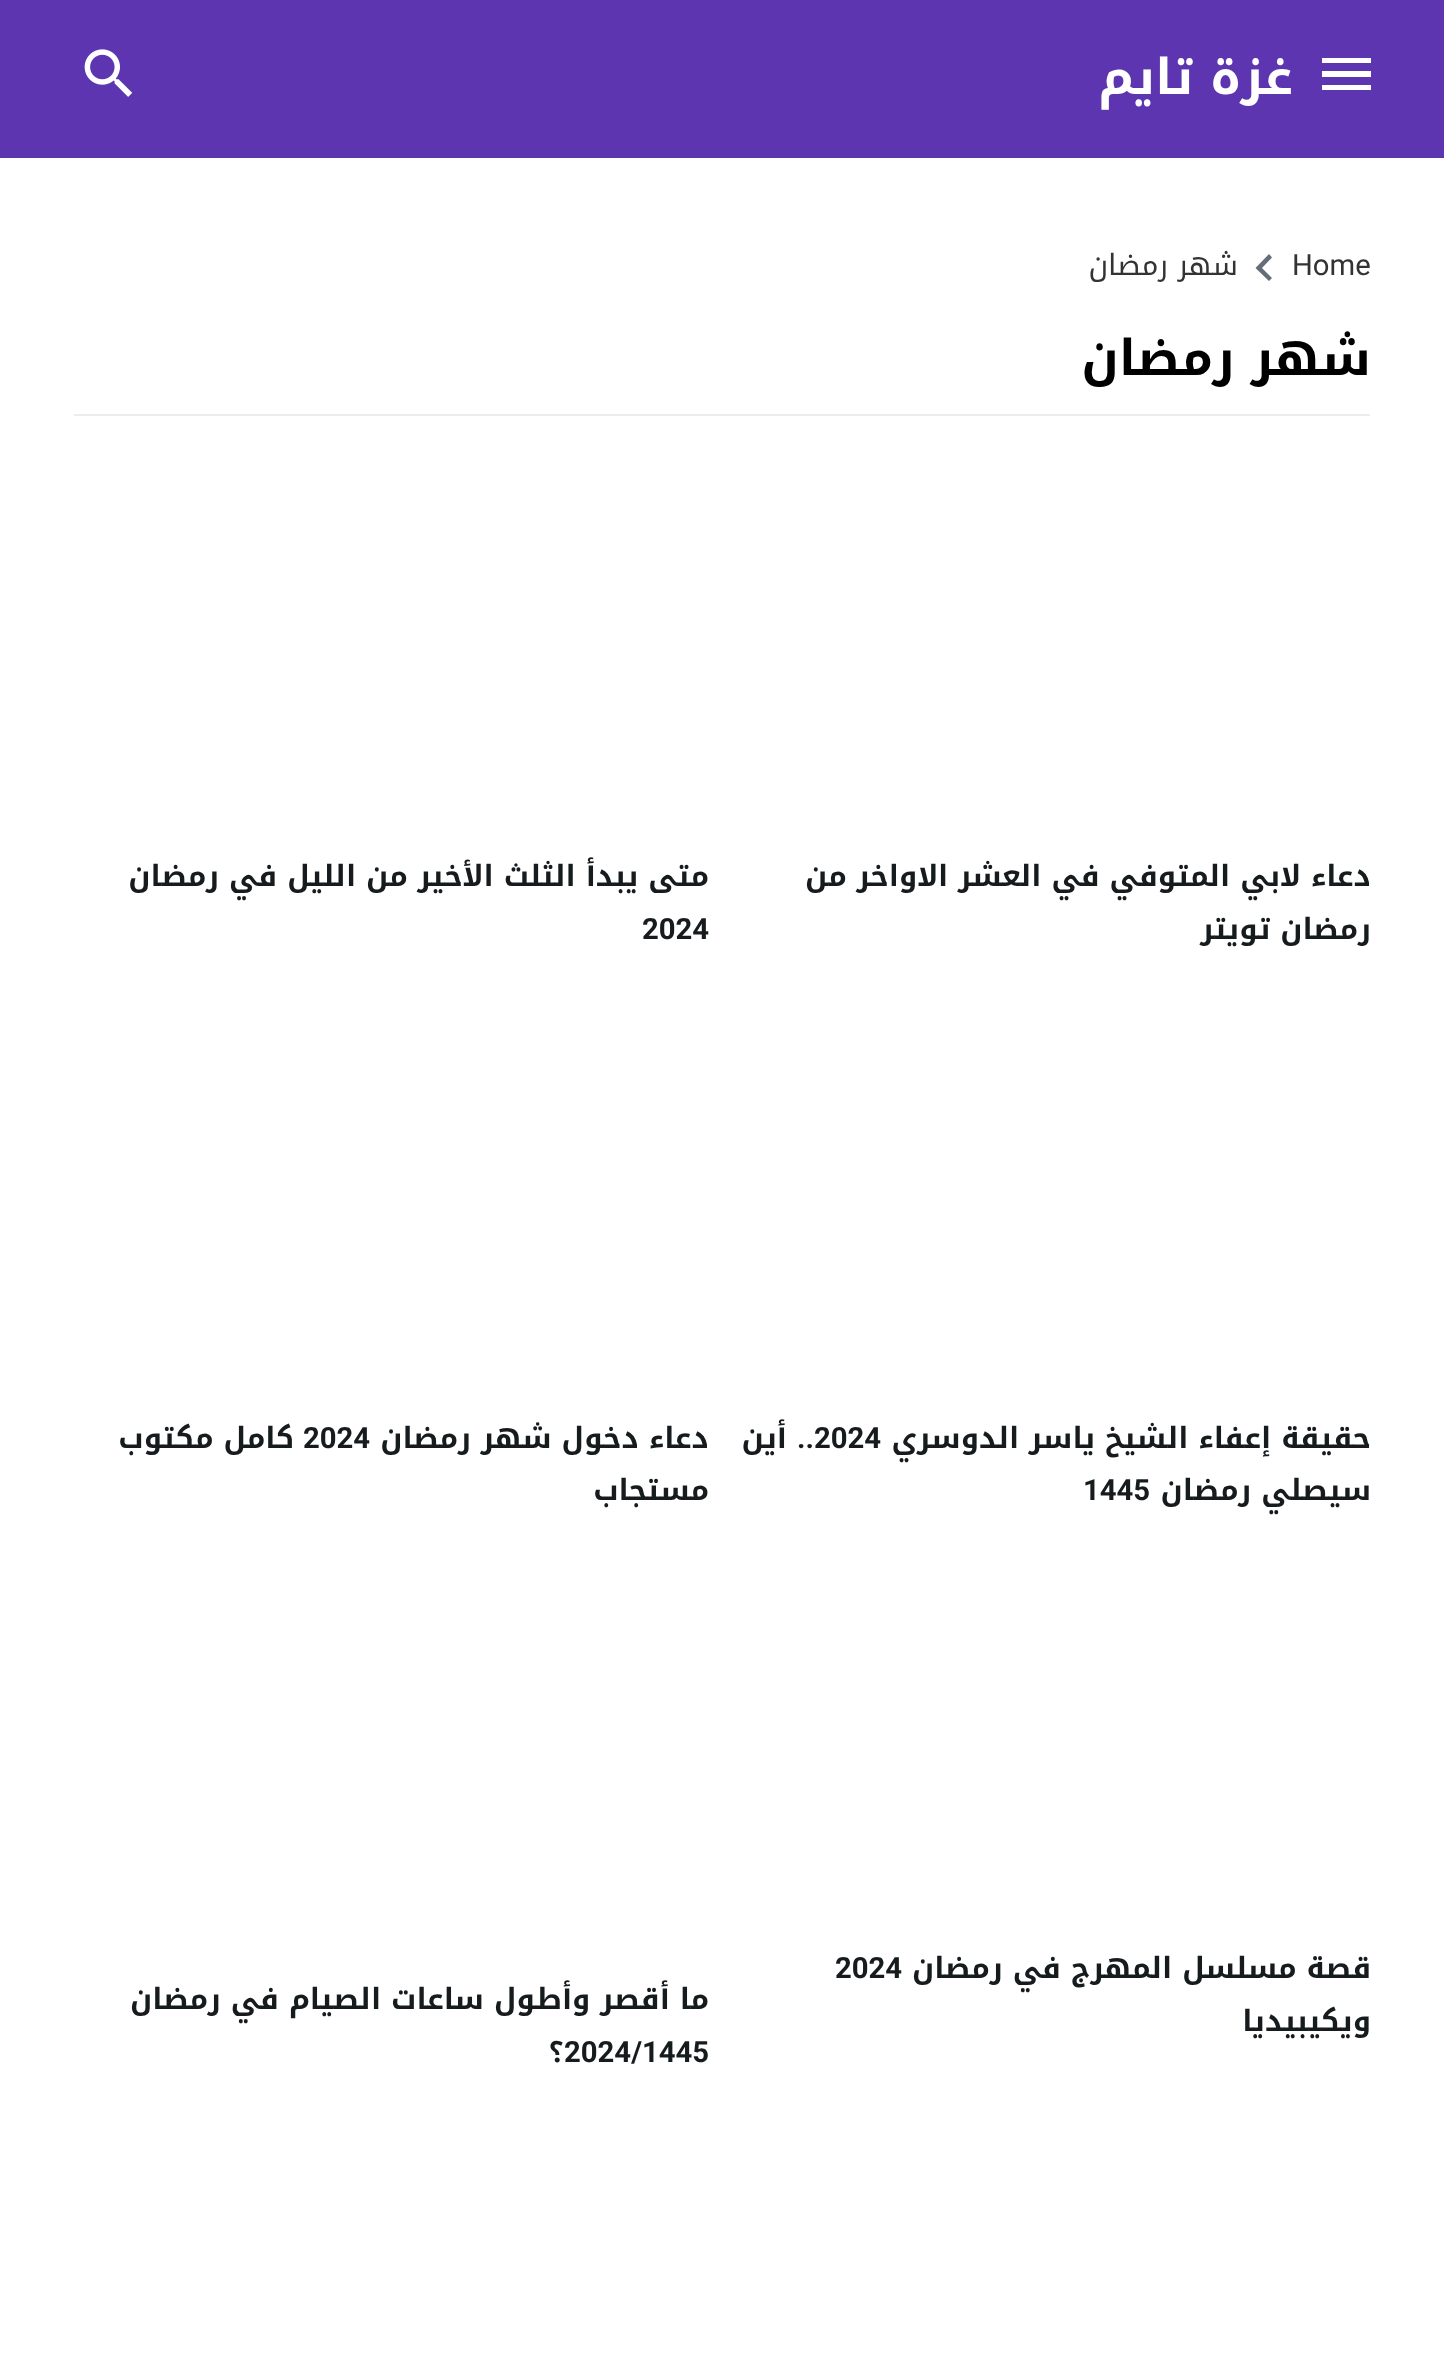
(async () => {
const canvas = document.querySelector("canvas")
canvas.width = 1444
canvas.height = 2356
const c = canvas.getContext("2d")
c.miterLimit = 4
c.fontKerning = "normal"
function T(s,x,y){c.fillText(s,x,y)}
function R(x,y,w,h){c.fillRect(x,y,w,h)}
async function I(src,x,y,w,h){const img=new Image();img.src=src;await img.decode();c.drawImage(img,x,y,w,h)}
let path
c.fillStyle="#fff"
R(0,0,1444,2356)
c.fillStyle="#5e35b1"
R(0,0,1444,158)
c.fillStyle="#fff"
path = new Path2D("M1322 58h49v5h-49v-5m0 13h49v6h-49v-6m0 14h49v5h-49z")
c.fill(path)
c.direction="rtl"
c.font="bold 49.5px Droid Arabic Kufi"
T("غزة تايم",1293,94)
await I("1.png",84,49,49,48)
c.direction="ltr"
c.font="29.25px Roboto"
c.fillStyle="#333"
T("Home",1292,275)
c.fillStyle="#656c7a"
path = new Path2D("M1272 278l-10-10l10-10.5l-3-3.5l-13.5 14l13.5 13z")
c.fill(path)
c.direction="rtl"
c.font="29.25px Droid Arabic Kufi"
c.fillStyle="#333"
T("شهر رمضان",1238,275)
c.fillStyle="#e9edf0"
R(74,414,1296,2)
c.font="bold 49.5px Droid Arabic Kufi"
c.fillStyle="#000"
T("شهر رمضان",1371,375)
c.font="bold 29.25px Droid Arabic Kufi"
c.fillStyle="#161b1e"
T("دعاء لابي المتوفي في العشر الاواخر من",1371,886)
T("رمضان تويتر",1371,939)
T("متى يبدأ الثلث الأخير من الليل في رمضان",709,886)
c.direction="ltr"
c.font="bold 29.25px Roboto"
T("2024",642,939)
c.direction="rtl"
c.font="bold 29.25px Droid Arabic Kufi"
T("حقيقة إعفاء الشيخ ياسر الدوسري",1371,1448)
c.direction="ltr"
c.font="bold 29.25px Roboto"
T("2024",814,1448)
c.direction="rtl"
T("..",814,1448)
c.font="bold 29.25px Droid Arabic Kufi"
T("أين",787,1448)
T("سيصلي رمضان",1371,1500)
c.direction="ltr"
c.font="bold 29.25px Roboto"
T("1445",1083,1500)
c.direction="rtl"
c.font="bold 29.25px Droid Arabic Kufi"
T("دعاء دخول شهر رمضان",709,1448)
c.direction="ltr"
c.font="bold 29.25px Roboto"
T("2024",303,1448)
c.direction="rtl"
c.font="bold 29.25px Droid Arabic Kufi"
T("كامل مكتوب",294,1448)
T("مستجاب",709,1500)
T("قصة مسلسل المهرج في رمضان",1371,1978)
c.direction="ltr"
c.font="bold 29.25px Roboto"
T("2024",835,1978)
c.direction="rtl"
c.font="bold 29.25px Droid Arabic Kufi"
T("ويكيبيديا",1371,2031)
T("ما أقصر وأطول ساعات الصيام في رمضان",709,2009)
c.direction="ltr"
c.font="bold 29.25px Roboto"
T("2024/1445",564,2062)
c.direction="rtl"
c.font="bold 29.25px Droid Arabic Kufi"
T("؟",564,2062)
})()
